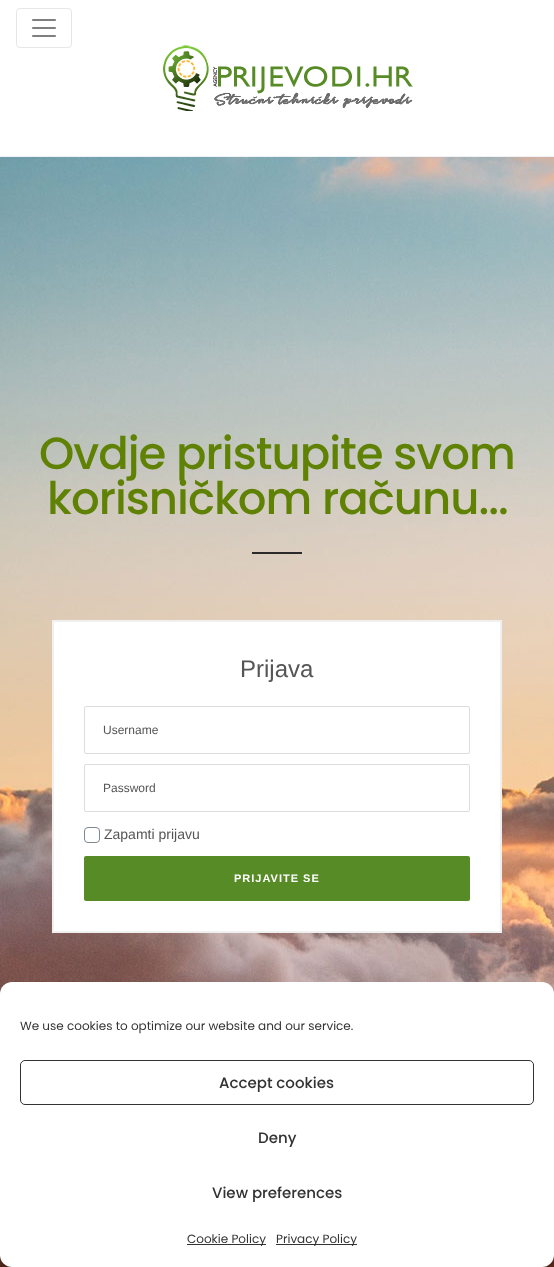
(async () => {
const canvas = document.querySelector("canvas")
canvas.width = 554
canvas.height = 1267
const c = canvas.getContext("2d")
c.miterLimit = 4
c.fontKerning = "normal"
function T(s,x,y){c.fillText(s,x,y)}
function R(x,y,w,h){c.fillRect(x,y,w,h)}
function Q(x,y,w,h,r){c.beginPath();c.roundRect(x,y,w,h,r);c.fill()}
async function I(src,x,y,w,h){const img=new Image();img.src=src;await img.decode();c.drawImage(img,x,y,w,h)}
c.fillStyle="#fff"
R(0,0,554,1267)
c.fillStyle="#f0f2f7"
R(0,156,554,1)
c.beginPath()
c.roundRect(16.5,8.5,55,39,3.5)
c.strokeStyle="#e6e6e6"
c.stroke()
await I("1.png",32,19,24,18)
await I("2.png",163,45,250,66)
await I("3.png",0,157,554,1110)
c.letterSpacing="-1px"
c.font="500 45px Poppins"
c.fillStyle="#608204"
T("Ovdje pristupite svom",39,469)
T("korisničkom računu...",47,514)
c.fillStyle="#2a2a2a"
R(252,552,50,2)
c.fillStyle="#fff"
c.beginPath()
c.rect(53,621,448,311)
c.fill()
c.strokeStyle="#f0f0f0"
c.lineWidth=2
c.stroke()
c.letterSpacing="0px"
c.font="24px Liberation Sans"
c.fillStyle="#555"
T("Prijava",240,677)
c.beginPath()
c.roundRect(84.5,706.5,385,47,1.5)
c.strokeStyle="#ddd"
c.lineWidth=1
c.stroke()
c.font="12px Liberation Sans"
T("Username",103,734)
c.beginPath()
c.roundRect(84.5,764.5,385,47,1.5)
c.stroke()
T("Password",103,792)
c.beginPath()
c.roundRect(84.5,827.5,15,15,3.5)
c.strokeStyle="#7e8993"
c.stroke()
c.font="14px Liberation Sans"
T("Zapamti prijavu",104,839)
c.fillStyle="#568b26"
Q(84,856,386,45,2)
c.letterSpacing="1px"
c.font="bold 11px Liberation Sans"
c.fillStyle="#fff"
T("PRIJAVITE SE",234,882)
c.fillStyle="#0000003b"
c.filter="blur(3px)"
c.beginPath()
c.roundRect(0,988,554,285,12)
c.fill()
c.filter="none"
c.fillStyle="#00000030"
c.filter="blur(10px)"
c.beginPath()
c.roundRect(0,992,554,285,12)
c.fill()
c.filter="none"
c.fillStyle="#808080"
c.filter="blur(2.5px)"
c.beginPath()
c.roundRect(484,1193,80,60,2)
c.fill()
c.filter="none"
c.fillStyle="#fff"
Q(0,982,554,285,12)
c.letterSpacing="0px"
c.font="12px Poppins"
c.fillStyle="#333"
T("We use cookies to optimize our website and our service.",20,1030)
c.beginPath()
c.roundRect(20.5,1060.5,513,44,4.5)
c.strokeStyle="#333"
c.stroke()
c.font="500 15px Poppins"
T("Accept cookies",219,1088)
T("Deny",258,1143)
T("View preferences",212,1198)
R(187,1244,79,1)
c.font="12px Poppins"
T("Cookie Policy",187,1243)
R(276,1244,81,1)
T("Privacy Policy",276,1243)
})()
